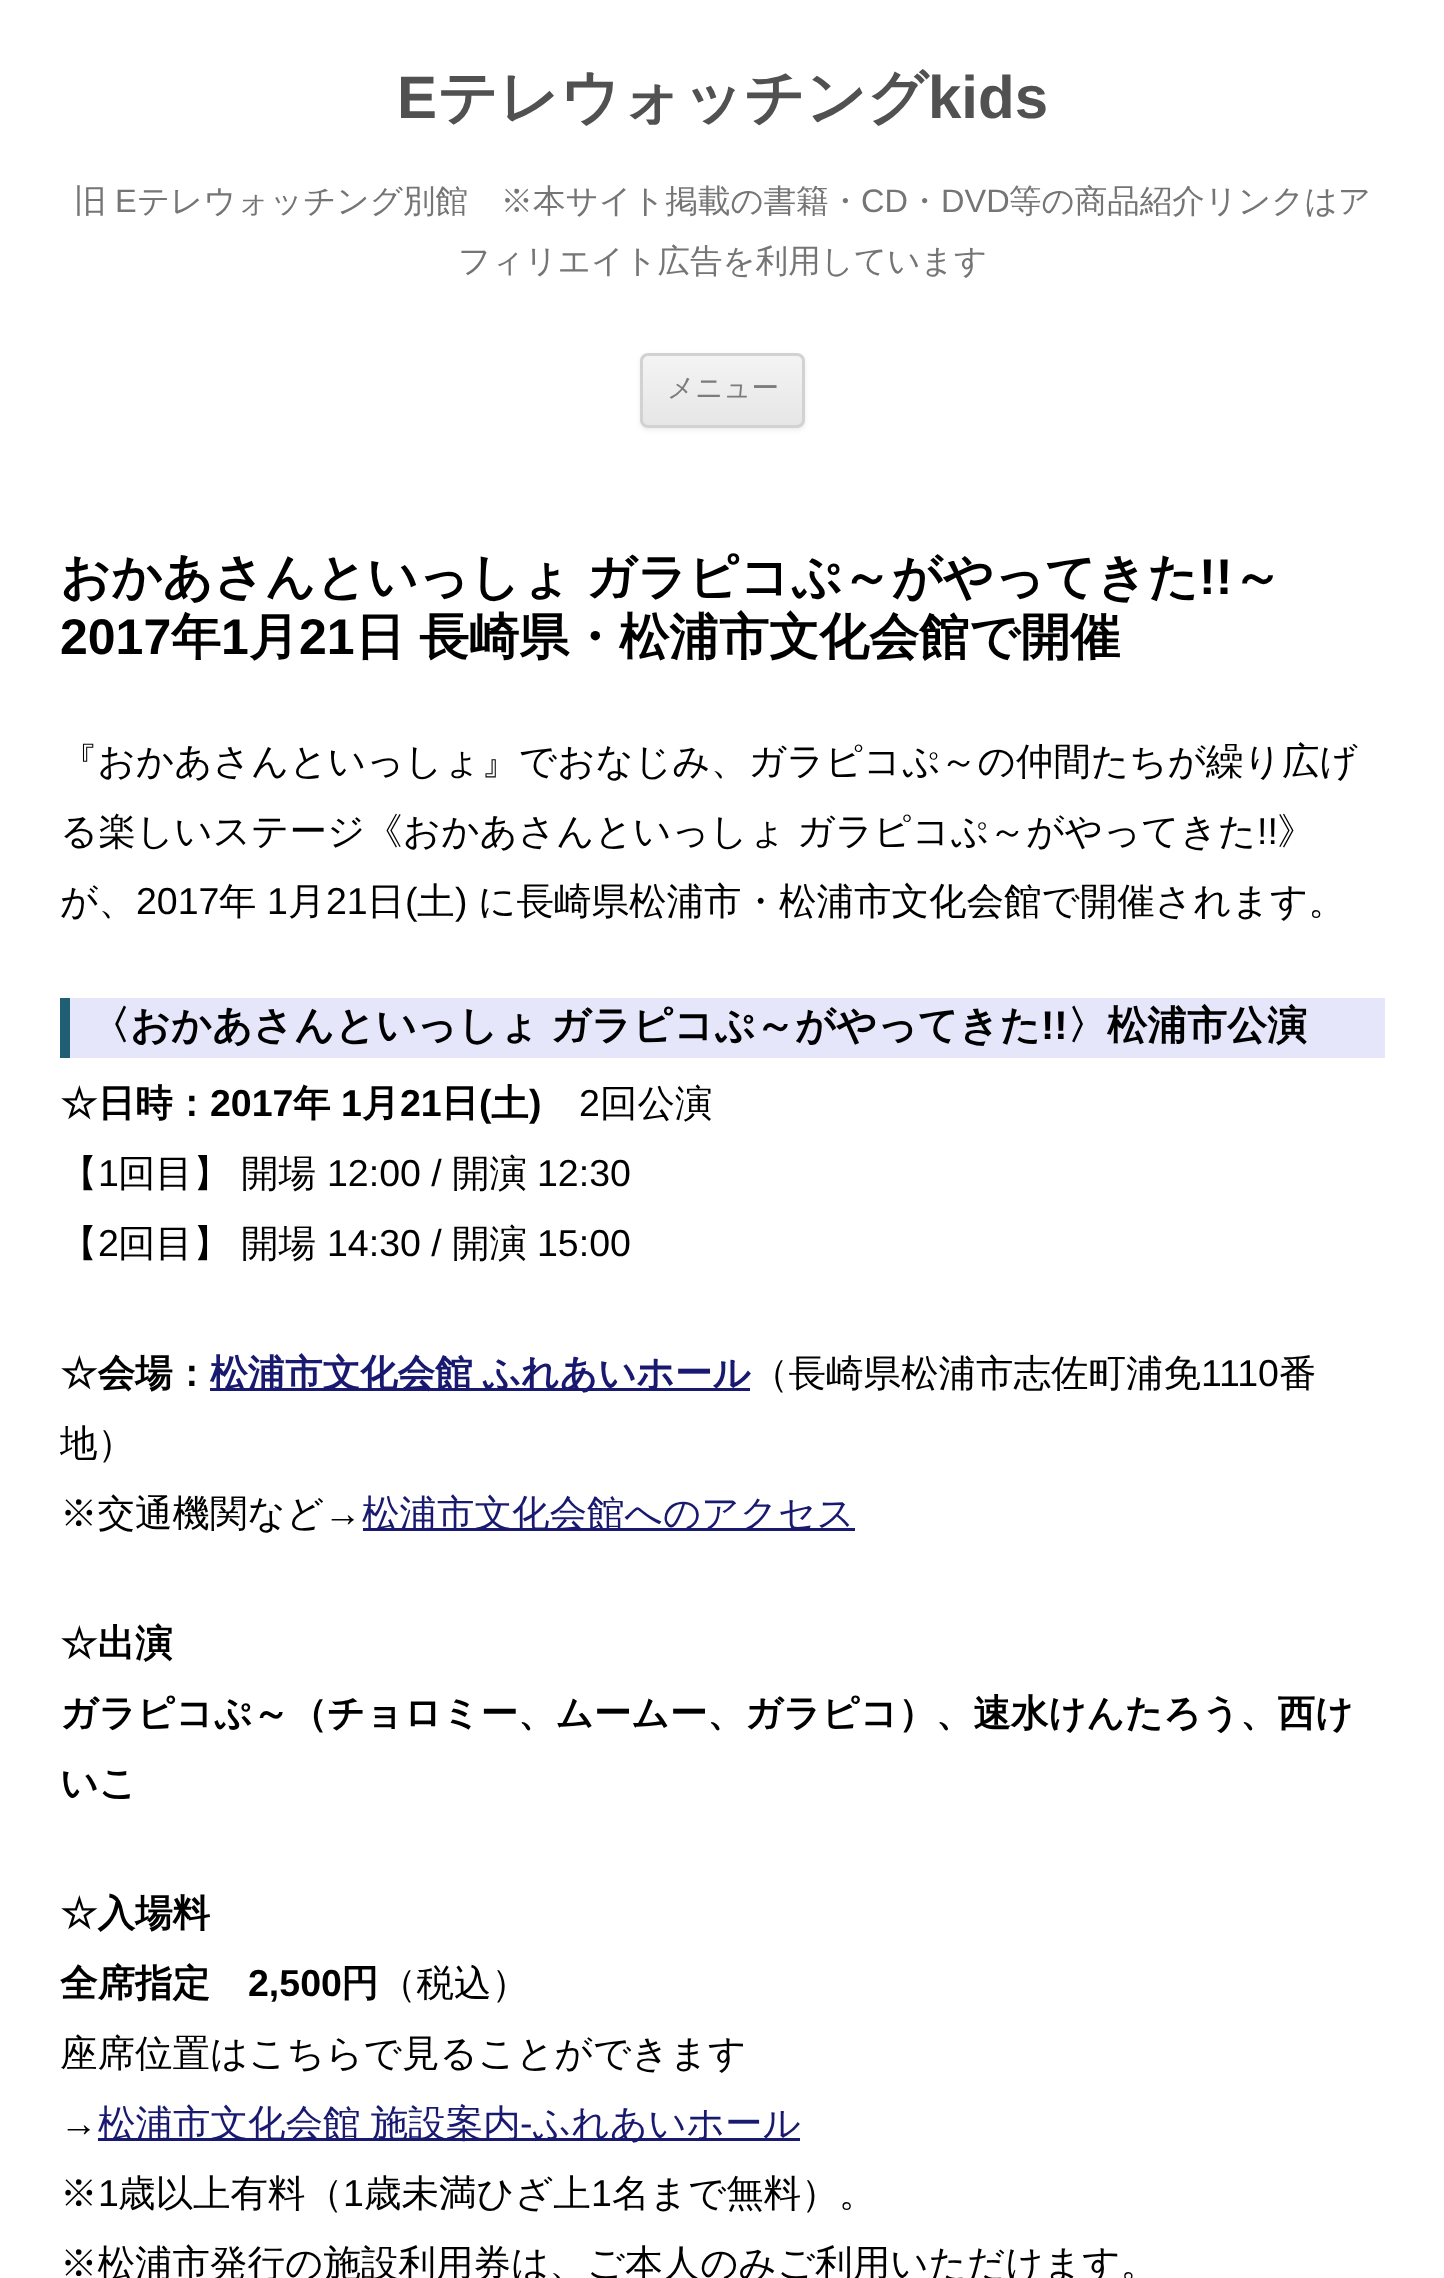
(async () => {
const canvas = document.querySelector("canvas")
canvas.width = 1444
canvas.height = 2278
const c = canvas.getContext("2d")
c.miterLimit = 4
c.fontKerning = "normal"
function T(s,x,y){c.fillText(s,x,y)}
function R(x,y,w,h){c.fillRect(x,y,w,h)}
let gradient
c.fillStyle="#fff"
R(0,0,1444,2278)
c.font="bold 60px Liberation Sans"
c.fillStyle="#515151"
T("E",397,118)
c.font="bold 60px WenQuanYi Zen Hei"
T("テレウォッチング",437,118)
c.font="bold 60px Liberation Sans"
T("kids",928,118)
c.font="500 32.5px WenQuanYi Zen Hei"
c.fillStyle="#757575"
T("旧",74,212)
c.font="32.5px Liberation Sans"
T("E",115,212)
c.font="500 32.5px WenQuanYi Zen Hei"
T("テレウォッチング別館　※本サイト掲載の書籍・",137,212)
c.font="32.5px Liberation Sans"
T("CD",861,212)
c.font="500 32.5px WenQuanYi Zen Hei"
T("・",908,212)
c.font="32.5px Liberation Sans"
T("DVD",941,212)
c.font="500 32.5px WenQuanYi Zen Hei"
T("等の商品紹介リンクはア",1009,212)
T("フィリエイト広告を利用しています",458,272)
c.fillStyle="#4040401a"
c.filter="blur(2.5px)"
c.beginPath()
c.roundRect(640,355,165,75,8)
c.fill()
c.filter="none"
c.save()
c.beginPath()
c.roundRect(640,353,165,75,8)
c.clip()
gradient = c.createLinearGradient(723,355,723,425)
gradient.addColorStop(0,"#f4f4f4")
gradient.addColorStop(1,"#e6e6e6")
c.fillStyle = gradient
R(640,355,165,70)
c.restore()
c.beginPath()
c.roundRect(641.5,354.5,162,72,6.5)
c.strokeStyle="#d2d2d2"
c.lineWidth=3
c.stroke()
c.font="500 27.5px WenQuanYi Zen Hei"
c.fillStyle="#7c7c7c"
T("メニュー",667,397)
c.wordSpacing="-1px"
c.font="bold 50px WenQuanYi Zen Hei"
c.fillStyle="#000"
T("おかあさんといっしょ ガラピコぷ～がやってきた",60,594)
c.wordSpacing="0px"
c.font="bold 50px Liberation Sans"
T("!!",1199,594)
c.font="bold 50px WenQuanYi Zen Hei"
T("～",1232,594)
c.font="bold 50px Liberation Sans"
T("2017",60,654)
c.font="bold 50px WenQuanYi Zen Hei"
T("年",171,654)
c.font="bold 50px Liberation Sans"
T("1",221,654)
c.font="bold 50px WenQuanYi Zen Hei"
T("月",249,654)
c.font="bold 50px Liberation Sans"
T("21",299,654)
c.wordSpacing="-1px"
c.font="bold 50px WenQuanYi Zen Hei"
T("日 長崎県・松浦市文化会館で開催",355,654)
c.wordSpacing="0px"
c.font="500 37.5px WenQuanYi Zen Hei"
T("『おかあさんといっしょ』でおなじみ、ガラピコぷ～の仲間たちが繰り広げ",60,774)
c.wordSpacing="-1px"
T("る楽しいステージ《おかあさんといっしょ ガラピコぷ～がやってきた",60,844)
c.wordSpacing="0px"
c.font="37.5px Liberation Sans"
T("!!",1257,844)
c.font="500 37.5px WenQuanYi Zen Hei"
T("》",1277,844)
T("が、",60,914)
c.font="37.5px Liberation Sans"
T("2017",136,914)
c.font="500 37.5px WenQuanYi Zen Hei"
T("年",219,914)
c.font="37.5px Liberation Sans"
T("1",267,914)
c.font="500 37.5px WenQuanYi Zen Hei"
T("月",288,914)
c.font="37.5px Liberation Sans"
T("21",326,914)
c.font="500 37.5px WenQuanYi Zen Hei"
T("日",367,914)
c.font="37.5px Liberation Sans"
T("(",405,914)
c.font="500 37.5px WenQuanYi Zen Hei"
T("土",417,914)
c.font="37.5px Liberation Sans"
T(")",455,914)
c.font="500 37.5px WenQuanYi Zen Hei"
T("に長崎県松浦市・松浦市文化会館で開催されます。",478,914)
c.fillStyle="#e6e6fa"
R(70,998,1315,60)
c.fillStyle="#1f5e73"
R(60,998,10,60)
c.wordSpacing="-1px"
c.font="bold 40px WenQuanYi Zen Hei"
c.fillStyle="#000"
T("〈おかあさんといっしょ ガラピコぷ～がやってきた",90,1039)
c.wordSpacing="0px"
c.font="bold 40px Liberation Sans"
T("!!",1041,1039)
c.font="bold 40px WenQuanYi Zen Hei"
T("〉松浦市公演",1067,1039)
c.font="bold 37.5px WenQuanYi Zen Hei"
T("☆日時：",60,1116)
c.font="bold 37.5px Liberation Sans"
T("2017",210,1116)
c.font="bold 37.5px WenQuanYi Zen Hei"
T("年",293,1116)
c.font="bold 37.5px Liberation Sans"
T("1",341,1116)
c.font="bold 37.5px WenQuanYi Zen Hei"
T("月",362,1116)
c.font="bold 37.5px Liberation Sans"
T("21",400,1116)
c.font="bold 37.5px WenQuanYi Zen Hei"
T("日",441,1116)
c.font="bold 37.5px Liberation Sans"
T("(",479,1116)
c.font="bold 37.5px WenQuanYi Zen Hei"
T("土",491,1116)
c.font="bold 37.5px Liberation Sans"
T(")",529,1116)
c.font="37.5px Liberation Sans"
T("2",579,1116)
c.font="500 37.5px WenQuanYi Zen Hei"
T("回公演",600,1116)
T("【",60,1186)
c.font="37.5px Liberation Sans"
T("1",98,1186)
c.font="500 37.5px WenQuanYi Zen Hei"
T("回目】",118,1186)
T("開場",241,1186)
c.font="37.5px Liberation Sans"
T("12:00 /",327,1186)
c.font="500 37.5px WenQuanYi Zen Hei"
T("開演",452,1186)
c.font="37.5px Liberation Sans"
T("12:30",537,1186)
c.font="500 37.5px WenQuanYi Zen Hei"
T("【",60,1256)
c.font="37.5px Liberation Sans"
T("2",98,1256)
c.font="500 37.5px WenQuanYi Zen Hei"
T("回目】",118,1256)
T("開場",241,1256)
c.font="37.5px Liberation Sans"
T("14:30 /",327,1256)
c.font="500 37.5px WenQuanYi Zen Hei"
T("開演",452,1256)
c.font="37.5px Liberation Sans"
T("15:00",537,1256)
c.font="bold 37.5px WenQuanYi Zen Hei"
T("☆会場：",60,1386)
c.fillStyle="#191970"
R(210,1388,540,3)
c.wordSpacing="-1px"
T("松浦市文化会館 ふれあいホール",210,1386)
c.wordSpacing="0px"
c.font="500 37.5px WenQuanYi Zen Hei"
c.fillStyle="#000"
T("（長崎県松浦市志佐町浦免",751,1386)
c.font="37.5px Liberation Sans"
T("1110",1201,1386)
c.font="500 37.5px WenQuanYi Zen Hei"
T("番",1279,1386)
T("地）",60,1456)
T("※交通機関など",60,1526)
c.font="37.5px Liberation Sans"
T("→",324,1526)
c.fillStyle="#191970"
R(363,1528,492,3)
c.font="500 37.5px WenQuanYi Zen Hei"
T("松浦市文化会館へのアクセス",362,1526)
c.font="bold 37.5px WenQuanYi Zen Hei"
c.fillStyle="#000"
T("☆出演",60,1656)
T("ガラピコぷ～（チョロミー、ムームー、ガラピコ）、速水けんたろう、西け",60,1726)
T("いこ",60,1796)
T("☆入場料",60,1926)
T("全席指定",60,1996)
c.font="bold 37.5px Liberation Sans"
T("2,500",248,1996)
c.font="bold 37.5px WenQuanYi Zen Hei"
T("円",341,1996)
c.font="500 37.5px WenQuanYi Zen Hei"
T("（税込）",379,1996)
T("座席位置はこちらで見ることができます",60,2066)
c.font="37.5px Liberation Sans"
T("→",60,2136)
c.fillStyle="#191970"
R(98,2138,702,3)
c.wordSpacing="-1px"
c.font="500 37.5px WenQuanYi Zen Hei"
T("松浦市文化会館 施設案内",98,2136)
c.wordSpacing="0px"
c.font="37.5px Liberation Sans"
T("-",520,2136)
c.font="500 37.5px WenQuanYi Zen Hei"
T("ふれあいホール",533,2136)
c.fillStyle="#000"
T("※",60,2206)
c.font="37.5px Liberation Sans"
T("1",98,2206)
c.font="500 37.5px WenQuanYi Zen Hei"
T("歳以上有料（",118,2206)
c.font="37.5px Liberation Sans"
T("1",343,2206)
c.font="500 37.5px WenQuanYi Zen Hei"
T("歳未満ひざ上",364,2206)
c.font="37.5px Liberation Sans"
T("1",591,2206)
c.font="500 37.5px WenQuanYi Zen Hei"
T("名まで無料）。",612,2206)
T("※松浦市発行の施設利用券は、ご本人のみご利用いただけます。",60,2276)
})()
